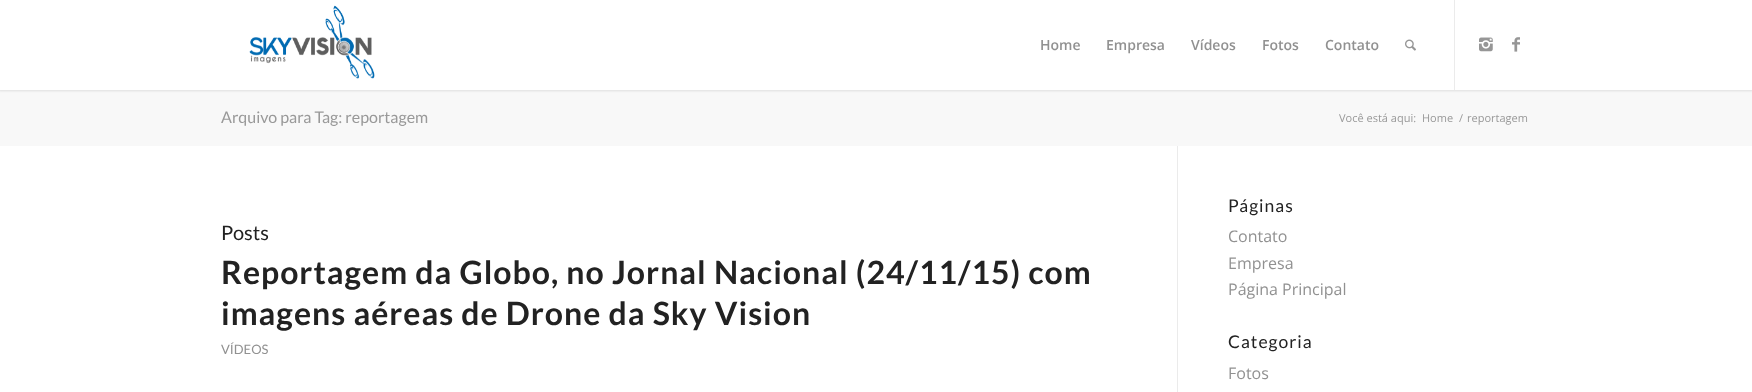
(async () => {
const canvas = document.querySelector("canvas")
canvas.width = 1752
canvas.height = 392
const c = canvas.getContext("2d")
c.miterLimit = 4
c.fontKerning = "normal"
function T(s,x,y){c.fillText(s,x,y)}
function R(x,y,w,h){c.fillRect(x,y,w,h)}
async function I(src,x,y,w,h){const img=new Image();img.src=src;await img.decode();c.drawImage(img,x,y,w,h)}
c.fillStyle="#fff"
R(0,0,1752,392)
c.fillStyle="#f8f8f8"
R(0,90,1752,56)
c.fillStyle="#0000001a"
c.filter="blur(1px)"
c.beginPath()
c.rect(-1,-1,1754,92)
c.fill()
c.filter="none"
c.fillStyle="#fff"
R(0,0,1752,90)
await I("1.png",249,5,126,74)
c.fillStyle="#ebebeb"
R(1454,0,1,90)
c.font="600 14px Open Sans"
c.fillStyle="#919191"
T("Home",1040,50)
T("Empresa",1106,50)
T("Vídeos",1191,50)
T("Fotos",1262,50)
T("Contato",1325,50)
await I("2.png",1405,39,11,12)
await I("3.png",1479,37,14,15)
await I("4.png",1512,37,8,15)
c.font="16px Lato"
c.fillStyle="#999"
T("Arquivo para Tag: reportagem",221,123)
c.font="11px Open Sans"
T("Você está aqui:",1339,122)
T("Home",1422,122)
T("/",1459,122)
T("reportagem",1467,122)
c.fillStyle="#ebebeb"
R(1177,146,1,246)
c.font="20px Lato"
c.fillStyle="#222"
T("Posts",221,240)
c.letterSpacing="1px"
c.font="bold 32px Lato"
T("Reportagem da Globo, no Jornal Nacional (24/11/15) com",221,284)
T("imagens aéreas de Drone da Sky Vision",221,325)
c.letterSpacing="0px"
c.font="13px Lato"
c.fillStyle="#919191"
T("VÍDEOS",221,354)
c.letterSpacing="1px"
c.font="17.5px Lato"
c.fillStyle="#222"
T("Páginas",1228,212)
c.letterSpacing="0px"
c.font="16px Open Sans"
c.fillStyle="#919191"
T("Contato",1228,242)
T("Empresa",1228,269)
T("Página Principal",1228,295)
c.letterSpacing="1px"
c.font="17.5px Lato"
c.fillStyle="#222"
T("Categoria",1228,348)
c.letterSpacing="0px"
c.font="16px Open Sans"
c.fillStyle="#919191"
T("Fotos",1228,379)
})()
